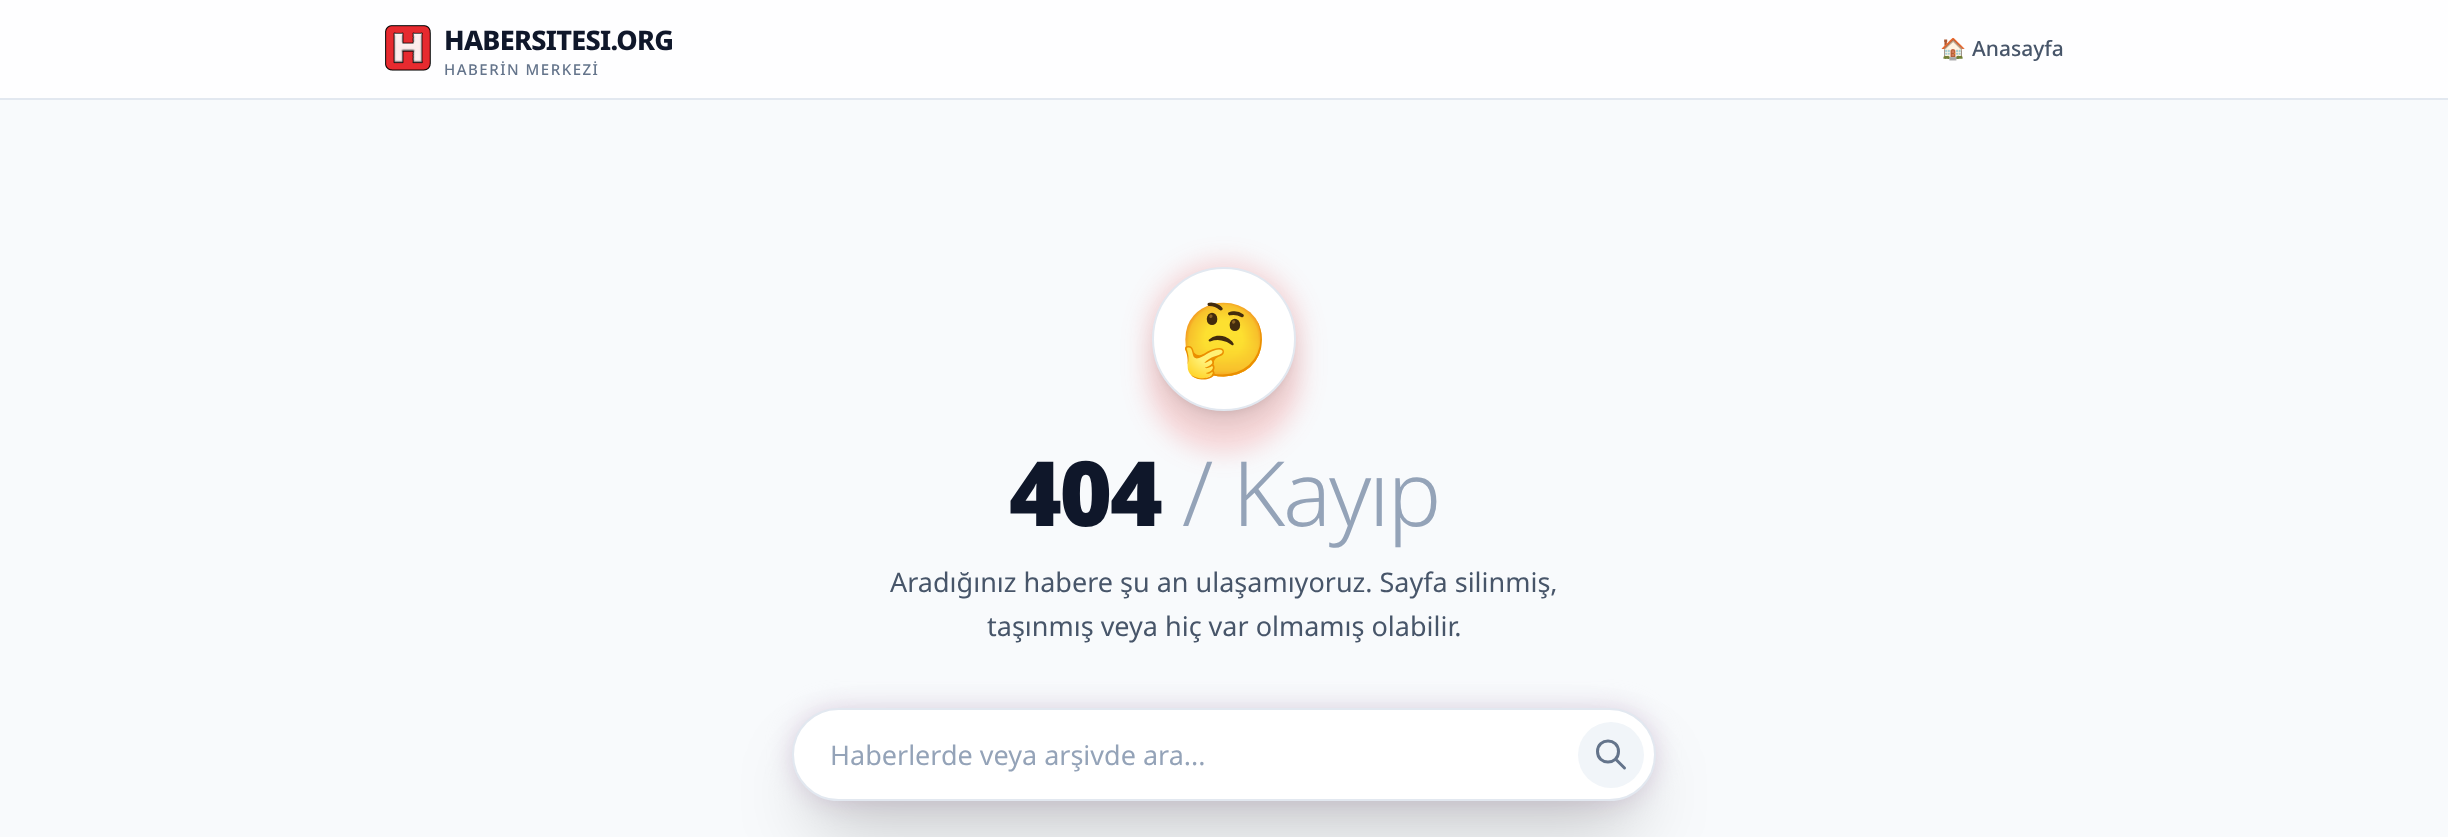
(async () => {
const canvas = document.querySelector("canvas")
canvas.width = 2448
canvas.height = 837
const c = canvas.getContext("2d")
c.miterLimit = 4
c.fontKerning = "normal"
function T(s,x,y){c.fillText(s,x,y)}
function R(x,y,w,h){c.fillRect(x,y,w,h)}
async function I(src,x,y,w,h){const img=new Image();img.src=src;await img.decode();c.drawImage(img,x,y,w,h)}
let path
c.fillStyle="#f8fafc"
R(0,0,2448,837)
c.fillStyle="#fefeff"
R(0,0,2448,98)
c.fillStyle="#e2e8f0"
R(0,98,2448,2)
await I("1.png",385,25,46,46)
c.letterSpacing="-0.7px"
c.font="800 27px Noto Sans"
c.fillStyle="#0f172a"
T("HABERSITESI.ORG",444,50)
c.letterSpacing="1.5px"
c.font="500 15px Noto Sans"
c.fillStyle="#64748b"
T("HABERİN MERKEZİ",444,75)
c.letterSpacing="0px"
c.font="21px Noto Color Emoji"
c.fillStyle="#475569"
T("🏠",1940,56)
c.font="500 21px Noto Sans"
T("Anasayfa",1972,56)
c.fillStyle="#ef444433"
c.filter="blur(12px)"
c.beginPath()
c.roundRect(1146,261,156,192,78)
c.fill()
c.filter="none"
c.fillStyle="#0000001a"
c.filter="blur(4.5px)"
c.beginPath()
c.roundRect(1158,279,132,132,66)
c.fill()
c.filter="none"
c.filter="blur(11px)"
c.beginPath()
c.roundRect(1157,287,135,135,67.5)
c.fill()
c.filter="none"
c.fillStyle="#fff"
c.beginPath()
c.arc(1224,339,71,0,7)
c.fill()
c.strokeStyle="#e2e8f0"
c.lineWidth=2
c.stroke()
c.font="72px Noto Color Emoji"
c.fillStyle="#ef4444"
T("🤔",1179,365)
c.letterSpacing="-2.25px"
c.font="900 90px Noto Sans"
c.fillStyle="#0f172a"
T("404",1009,526)
c.font="300 90px Noto Sans"
c.fillStyle="#94a3b8"
T("/ Kayıp",1182,526)
c.letterSpacing="0px"
c.font="27px Noto Sans"
c.fillStyle="#475569"
T("Aradığınız habere şu an ulaşamıyoruz. Sayfa silinmiş,",890,592)
T("taşınmış veya hiç var olmamış olabilir.",987,636)
c.fillStyle="#dfd4e4"
c.filter="blur(12px)"
c.beginPath()
c.roundRect(792,708,864,93,46.5)
c.fill()
c.filter="none"
c.fillStyle="#00000040"
c.filter="blur(37.5px)"
c.beginPath()
c.roundRect(810,764,828,57,28.5)
c.fill()
c.filter="none"
c.fillStyle="#fff"
c.beginPath()
c.roundRect(793,709,862,91,45.5)
c.fill()
c.stroke()
c.fillStyle="#94a3b8"
T("Haberlerde veya arşivde ara...",830,765)
c.fillStyle="#f1f5f9"
c.beginPath()
c.arc(1611,755,33,0,7)
c.fill()
path = new Path2D("M1624.5 768l-9-9m3-7.5c0 14-21 14-21 0c0-14 21-14 21 0z")
c.strokeStyle="#64748b"
c.lineWidth=3
c.lineCap="round"
c.lineJoin="round"
c.stroke(path)
})()
